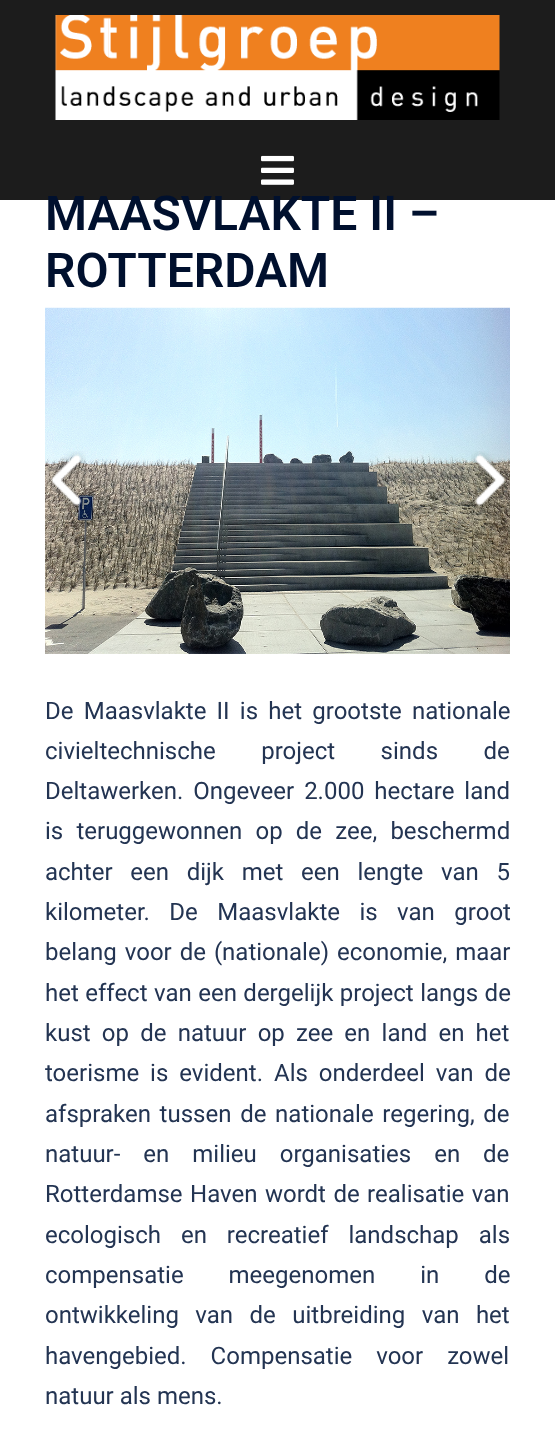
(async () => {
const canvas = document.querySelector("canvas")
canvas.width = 555
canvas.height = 1446
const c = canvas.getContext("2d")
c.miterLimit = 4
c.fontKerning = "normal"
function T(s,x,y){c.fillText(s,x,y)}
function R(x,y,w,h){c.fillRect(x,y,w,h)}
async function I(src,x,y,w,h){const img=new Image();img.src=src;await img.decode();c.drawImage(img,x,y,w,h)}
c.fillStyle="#fff"
R(0,0,555,1446)
c.fillStyle="#1c1c1c"
R(0,0,555,200)
await I("1.png",55,15,445,105)
await I("2.png",261,155,33,30)
c.font="600 48px Roboto"
c.fillStyle="#00102e"
T("MAASVLAKTE II –",45,230)
T("ROTTERDAM",45,287)
await I("3.png",45,307,465,347)
await I("4.png",47,451,39,60)
await I("5.png",471,451,39,60)
c.wordSpacing="4.25px"
c.font="24px Roboto"
c.fillStyle="#233452"
T("De Maasvlakte II is het grootste nationale",45,719)
c.wordSpacing="39.5px"
T("civieltechnische project sinds de",45,759)
c.wordSpacing="4px"
T("Deltawerken. Ongeveer 2.000 hectare land",45,799)
c.wordSpacing="7.25px"
T("is teruggewonnen op de zee, beschermd",45,839)
c.wordSpacing="11.75px"
T("achter een dijk met een lengte van 5",45,880)
c.wordSpacing="13.5px"
T("kilometer. De Maasvlakte is van groot",45,920)
c.wordSpacing="2px"
T("belang voor de (nationale) economie, maar",45,960)
c.wordSpacing="0.5px"
T("het effect van een dergelijk project langs de",45,1001)
c.wordSpacing="5.25px"
T("kust op de natuur op zee en land en het",45,1041)
c.wordSpacing="5px"
T("toerisme is evident. Als onderdeel van de",45,1081)
c.wordSpacing="2.75px"
T("afspraken tussen de nationale regering, de",45,1122)
c.wordSpacing="17px"
T("natuur- en milieu organisaties en de",45,1162)
c.wordSpacing="1.5px"
T("Rotterdamse Haven wordt de realisatie van",45,1202)
c.wordSpacing="14px"
T("ecologisch en recreatief landschap als",45,1243)
c.wordSpacing="39px"
T("compensatie meegenomen in de",45,1283)
c.wordSpacing="10.5px"
T("ontwikkeling van de uitbreiding van het",45,1323)
c.wordSpacing="18px"
T("havengebied. Compensatie voor zowel",45,1364)
c.wordSpacing="0px"
T("natuur als mens.",45,1404)
})()
